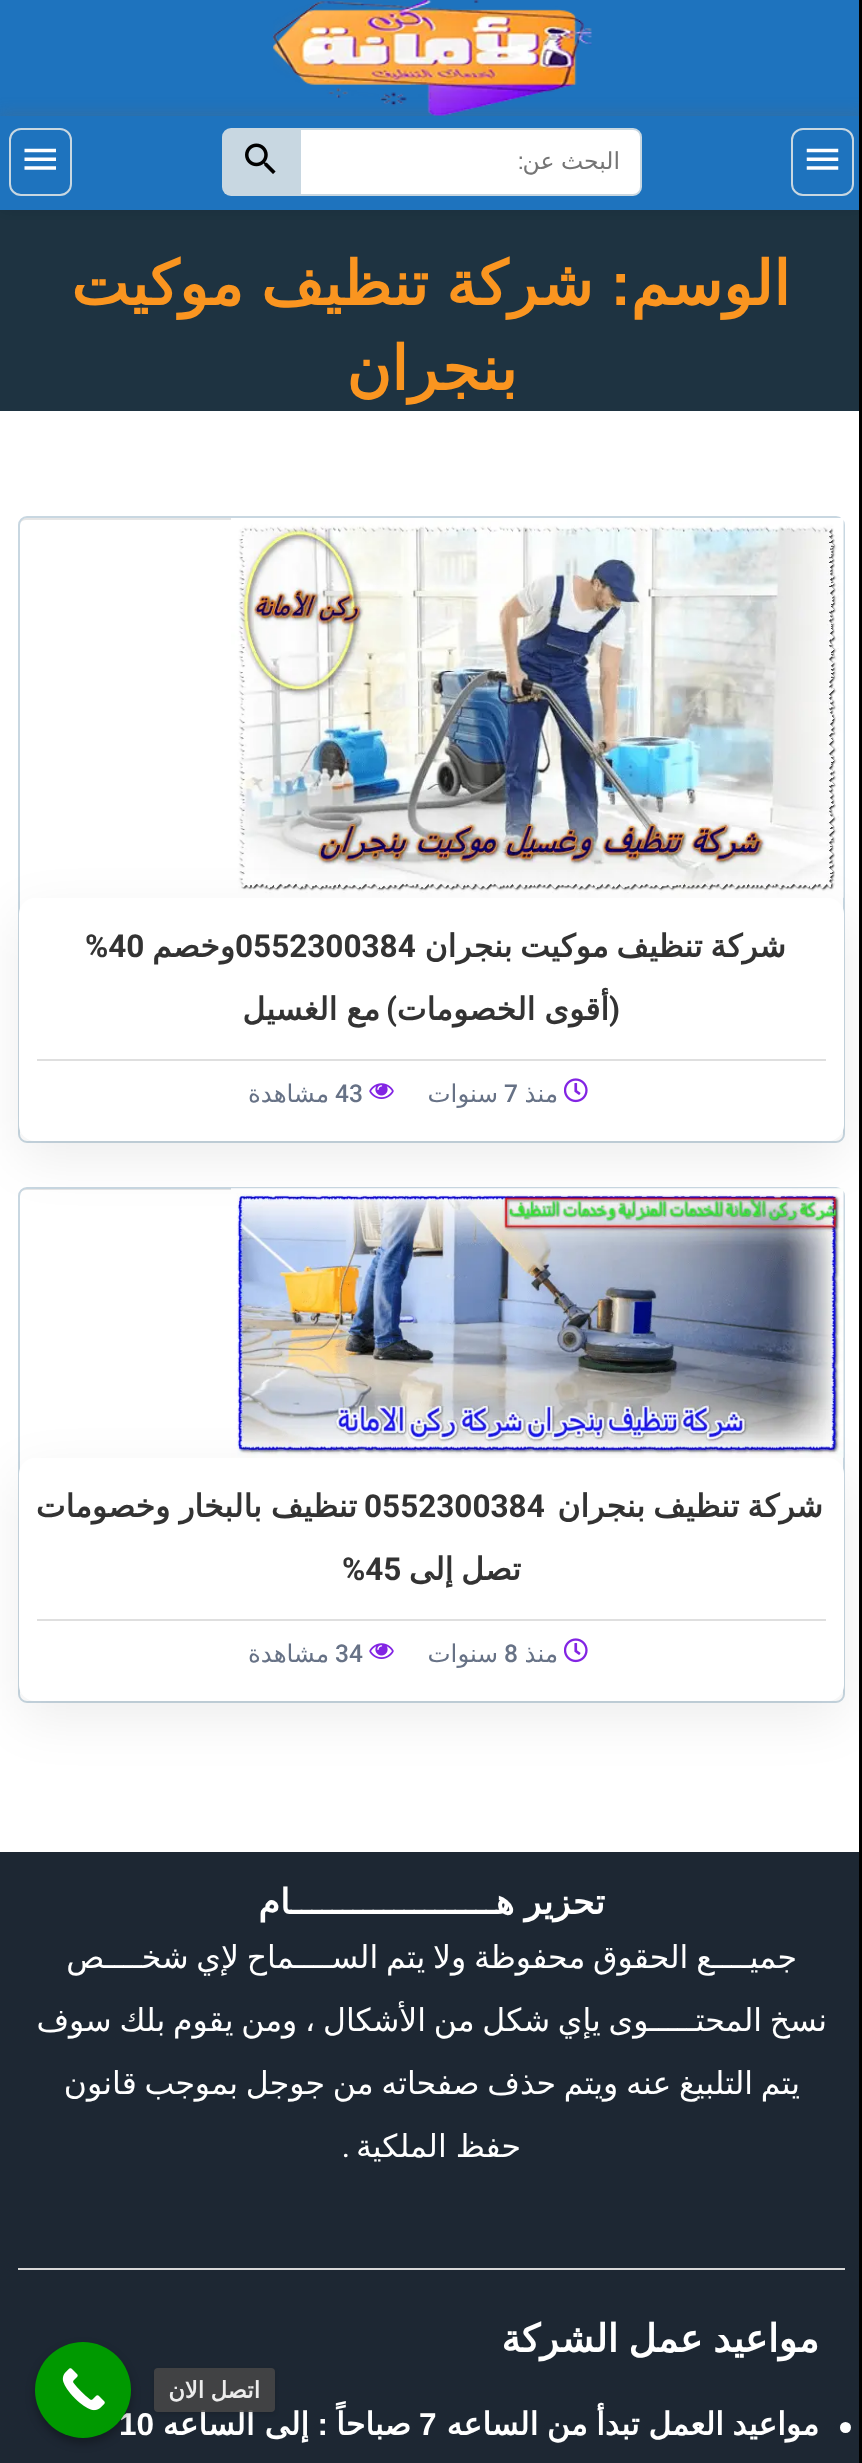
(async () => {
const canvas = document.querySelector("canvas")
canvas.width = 862
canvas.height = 2463
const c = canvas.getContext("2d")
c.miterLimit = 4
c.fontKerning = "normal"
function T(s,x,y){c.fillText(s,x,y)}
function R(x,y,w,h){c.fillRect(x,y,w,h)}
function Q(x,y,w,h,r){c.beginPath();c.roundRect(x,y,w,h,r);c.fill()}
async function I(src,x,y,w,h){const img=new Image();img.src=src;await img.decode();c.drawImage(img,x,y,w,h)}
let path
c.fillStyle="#fff"
R(0,0,862,2463)
c.fillStyle="#1e73be"
R(0,0,859,210)
c.save()
path = new Path2D("M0 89h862v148h-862zm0 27h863v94h-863z")
c.clip(path,"evenodd")
c.fillStyle="#6464644d"
c.filter="blur(8px)"
c.beginPath()
c.rect(-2,114,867,98)
c.fill()
c.filter="none"
c.restore()
c.fillStyle="#e6e6e6"
path = new Path2D("M26 520h810c4 0 8 3 8 7v-2c0-4-3-7-7-7h-811c-4 0-7 3-7 7v2c0-4 3-7 7-7z")
c.fill(path)
c.beginPath()
c.roundRect(19,517,825,625,8)
c.strokeStyle="#c8d7e1"
c.lineWidth=2
c.stroke()
await I("5.png",231,518,613,380)
path = new Path2D("M26 1190h810c4 0 8 3 8 7v-2c0-4-3-7-7-7h-811c-4 0-7 3-7 7v2c0-4 3-7 7-7z")
c.fill(path)
c.beginPath()
c.roundRect(19,1188,825,514,8)
c.stroke()
await I("8.png",231,1188,613,270)
c.fillStyle="#00000012"
c.filter="blur(26px)"
c.beginPath()
c.roundRect(19,915,825,244,16)
c.fill()
c.filter="none"
c.filter="blur(26px)"
c.beginPath()
c.roundRect(19,1475,825,244,16)
c.fill()
c.filter="none"
c.fillStyle="#000"
R(859,0,3,2463)
await I("1.png",273,0,319,116)
c.beginPath()
c.roundRect(792,129,61,66,11)
c.stroke()
await I("2.png",806,148,33,22)
c.fillStyle="#fff"
c.beginPath()
c.roundRect(300,129,341,66,[0,8,8,0])
c.fill()
c.stroke()
c.wordSpacing="-1px"
c.direction="rtl"
c.font="23.5px DejaVu Sans"
c.fillStyle="#757575"
T("البحث عن",620,169)
c.wordSpacing="0px"
c.font="23.5px Liberation Sans"
T(":",524,169)
c.fillStyle="#c8d7e1"
c.beginPath()
c.roundRect(222,128,77,68,[9,0,0,9])
c.fill()
await I("3.png",245,143,31,31)
c.beginPath()
c.roundRect(10,129,61,66,11)
c.stroke()
await I("4.png",24,148,32,22)
c.fillStyle="#042033de"
R(0,210,859,201)
c.fillStyle="#00000026"
R(0,210,859,201)
c.font="bold 61.25px DejaVu Sans"
c.fillStyle="#fa9520"
T("الوسم",790,305)
c.font="bold 61.25px Liberation Sans"
T(":",631,305)
c.wordSpacing="-2px"
c.font="bold 61.25px DejaVu Sans"
T("شركة تنظيف موكيت",593,305)
c.wordSpacing="0px"
T("بنجران",517,390)
c.fillStyle="#fff"
Q(19,898,825,243,16)
c.wordSpacing="-2.25px"
c.font="bold 31.5px DejaVu Sans"
c.fillStyle="#333"
T("شركة تنظيف موكيت بنجران",786,957)
c.wordSpacing="0px"
c.direction="ltr"
c.font="bold 31.5px Roboto"
T("0552300384",235,957)
c.direction="rtl"
c.font="bold 31.5px DejaVu Sans"
T("وخصم",235,957)
c.direction="ltr"
c.font="bold 31.5px Roboto"
T("%40",85,957)
c.direction="rtl"
T("(",620,1020)
c.wordSpacing="-1px"
c.font="bold 31.5px DejaVu Sans"
T("أقوى الخصومات",609,1020)
c.wordSpacing="0px"
c.font="bold 31.5px Roboto"
T(")",397,1020)
c.wordSpacing="-1px"
c.font="bold 31.5px DejaVu Sans"
T("مع الغسيل",380,1020)
c.fillStyle="#dfdfdf"
R(37,1059,789,2)
await I("6.png",564,1078,24,25)
c.wordSpacing="0px"
c.font="24.5px DejaVu Sans"
c.fillStyle="#677286"
T("منذ",558,1102)
c.direction="ltr"
c.font="500 24.5px Roboto"
T("7",504,1102)
c.direction="rtl"
c.font="24.5px DejaVu Sans"
T("سنوات",498,1102)
await I("7.png",369,1083,25,16)
c.direction="ltr"
c.font="500 24.5px Roboto"
T("43",335,1102)
c.direction="rtl"
c.font="24.5px DejaVu Sans"
T("مشاهدة",329,1102)
c.fillStyle="#fff"
Q(19,1458,825,243,16)
c.wordSpacing="-2px"
c.font="bold 31.5px DejaVu Sans"
c.fillStyle="#333"
T("شركة تنظيف بنجران",823,1517)
c.wordSpacing="0px"
c.direction="ltr"
c.font="bold 31.5px Roboto"
T("0552300384",364,1517)
c.wordSpacing="-1px"
c.direction="rtl"
c.font="bold 31.5px DejaVu Sans"
T("تنظيف بالبخار وخصومات",357,1517)
c.wordSpacing="-2.25px"
T("تصل إلى",521,1580)
c.wordSpacing="0px"
c.direction="ltr"
c.font="bold 31.5px Roboto"
T("%45",342,1580)
c.fillStyle="#dfdfdf"
R(37,1619,789,2)
await I("6.png",564,1638,24,25)
c.direction="rtl"
c.font="24.5px DejaVu Sans"
c.fillStyle="#677286"
T("منذ",558,1662)
c.direction="ltr"
c.font="500 24.5px Roboto"
T("8",504,1662)
c.direction="rtl"
c.font="24.5px DejaVu Sans"
T("سنوات",498,1662)
await I("7.png",369,1643,25,16)
c.direction="ltr"
c.font="500 24.5px Roboto"
T("34",335,1662)
c.direction="rtl"
c.font="24.5px DejaVu Sans"
T("مشاهدة",329,1662)
c.fillStyle="#1d2733"
R(0,1852,859,611)
c.fillStyle="#d8d8d8"
R(18,2268,827,2)
c.wordSpacing="-1px"
c.font="bold 35px DejaVu Sans"
c.fillStyle="#fff"
T("تحزير هــــــــــــــــــــام",605,1914)
c.wordSpacing="-2.25px"
c.font="31.5px DejaVu Sans"
T("جميــــع الحقوق محفوظة ولا يتم الســــماح لإي شخــــص",797,1968)
T("نسخ المحتـــــوى يإي شكل من الأشكال ، ومن يقوم بلك سوف",827,2031)
T("يتم التلبيغ عنه ويتم حذف صفحاته من جوجل بموجب قانون",800,2094)
c.wordSpacing="-1px"
T("حفظ الملكية",521,2157)
c.wordSpacing="0px"
c.font="31.5px Roboto"
T(".",350,2157)
c.wordSpacing="-2px"
c.font="bold 38.5px DejaVu Sans"
T("مواعيد عمل الشركة",819,2352)
c.beginPath()
c.arc(845.5,2427.5,5.5,0,7)
c.fill()
c.wordSpacing="-1.5px"
c.font="bold 31.5px DejaVu Sans"
T("مواعيد العمل تبدأ من الساعه",819,2435)
c.wordSpacing="0px"
c.direction="ltr"
c.font="bold 31.5px Liberation Sans"
T("7",419,2435)
c.direction="rtl"
c.font="bold 31.5px DejaVu Sans"
T("صباحاً",411,2435)
c.font="bold 31.5px Liberation Sans"
T(":",328,2435)
c.font="bold 31.5px DejaVu Sans"
T("إلى الساعه",309,2435)
c.direction="ltr"
c.font="bold 31.5px Liberation Sans"
T("10",119,2435)
c.fillStyle="#0000004d"
c.filter="blur(5px)"
c.beginPath()
c.roundRect(35,2347,96,96,48)
c.fill()
c.filter="none"
c.fillStyle="#090"
c.beginPath()
c.arc(83,2390,48,0,7)
c.fill()
await I("9.png",62,2368,43,43)
c.save()
path = new Path2D("M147 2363h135v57h-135zm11 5h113c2 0 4 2 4 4v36c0 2-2 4-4 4h-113c-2 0-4-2-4-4v-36c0-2 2-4 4-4z")
c.clip(path,"evenodd")
c.fillStyle="#00000026"
c.filter="blur(2px)"
c.beginPath()
c.roundRect(154,2370,121,43,4)
c.fill()
c.filter="none"
c.restore()
c.fillStyle="#464646e6"
Q(154,2368,121,44,4)
c.wordSpacing="-1px"
c.direction="rtl"
c.font="bold 22.75px DejaVu Sans"
c.fillStyle="#ececec"
T("اتصل الان",260,2398)
})()
